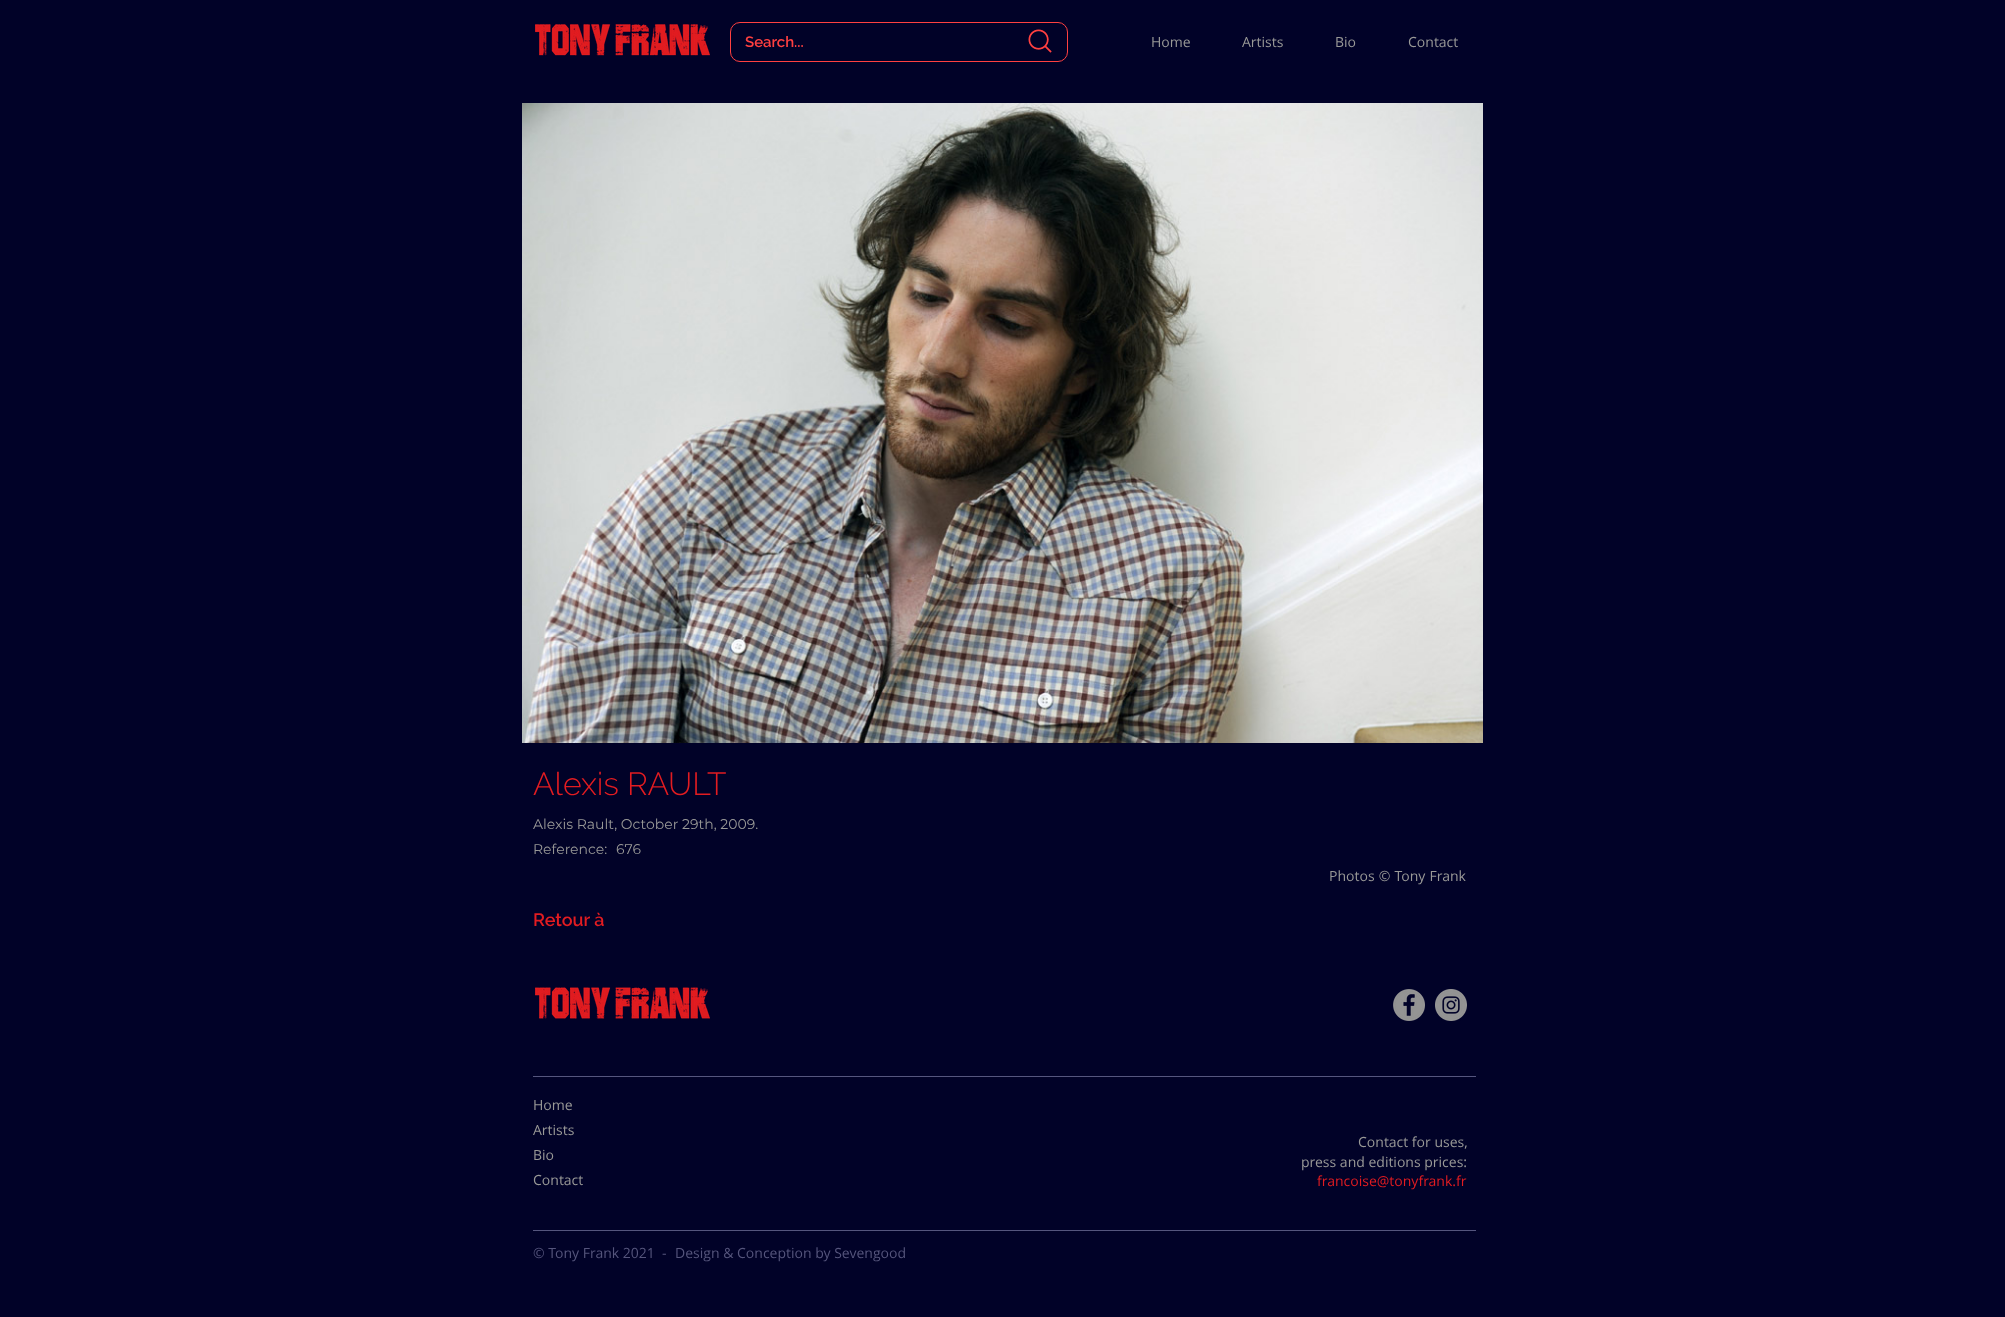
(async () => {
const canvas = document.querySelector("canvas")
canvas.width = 2005
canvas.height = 1317
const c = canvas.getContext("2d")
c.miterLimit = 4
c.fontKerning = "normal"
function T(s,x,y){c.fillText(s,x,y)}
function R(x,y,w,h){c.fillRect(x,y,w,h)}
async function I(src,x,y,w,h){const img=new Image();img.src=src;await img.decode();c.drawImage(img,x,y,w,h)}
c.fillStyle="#010228"
R(0,0,2005,1317)
await I("1.png",535,24,175,32)
c.beginPath()
c.roundRect(730.5,22.5,337,39,9.5)
c.strokeStyle="#ff4040"
c.stroke()
c.font="600 15px Raleway"
c.fillStyle="#ff4040"
T("Search...",745,47)
await I("2.png",1028,29,24,24)
c.font="14px Open Sans"
c.fillStyle="#999997"
T("Home",1151,47)
T("Artists",1242,47)
T("Bio",1335,47)
T("Contact",1408,47)
await I("3.png",522,103,961,640)
c.font="300 32px Raleway"
c.fillStyle="#e21c21"
T("Alexis RAULT",533,795)
c.font="14px Montserrat"
c.fillStyle="#999997"
T("Alexis Rault, October 29th, 2009.",533,829)
T("Reference:",533,854)
T("676",616,854)
c.wordSpacing="0.5px"
c.font="14px Open Sans"
T("Photos © Tony Frank",1329,881)
c.wordSpacing="0px"
c.font="600 18px Raleway"
c.fillStyle="#e21c21"
T("Retour à",533,926)
await I("4.png",535,987,175,32)
await I("5.png",1393,989,32,32)
await I("6.png",1435,989,32,32)
c.fillStyle="#55567e"
R(533,1076,943,1)
c.font="14px Open Sans"
c.fillStyle="#999997"
T("Home",533,1110)
T("Artists",533,1135)
T("Bio",533,1160)
T("Contact",533,1185)
T("Contact for uses,",1358,1147)
T("press and editions prices:",1301,1167)
c.fillStyle="#e21c21"
T("francoise@tonyfrank.fr",1317,1186)
c.fillStyle="#55567e"
R(533,1230,943,1)
c.fillStyle="#55557c"
T("© Tony Frank 2021  -",533,1258)
T("Design & Conception by Sevengood",675,1258)
})()
